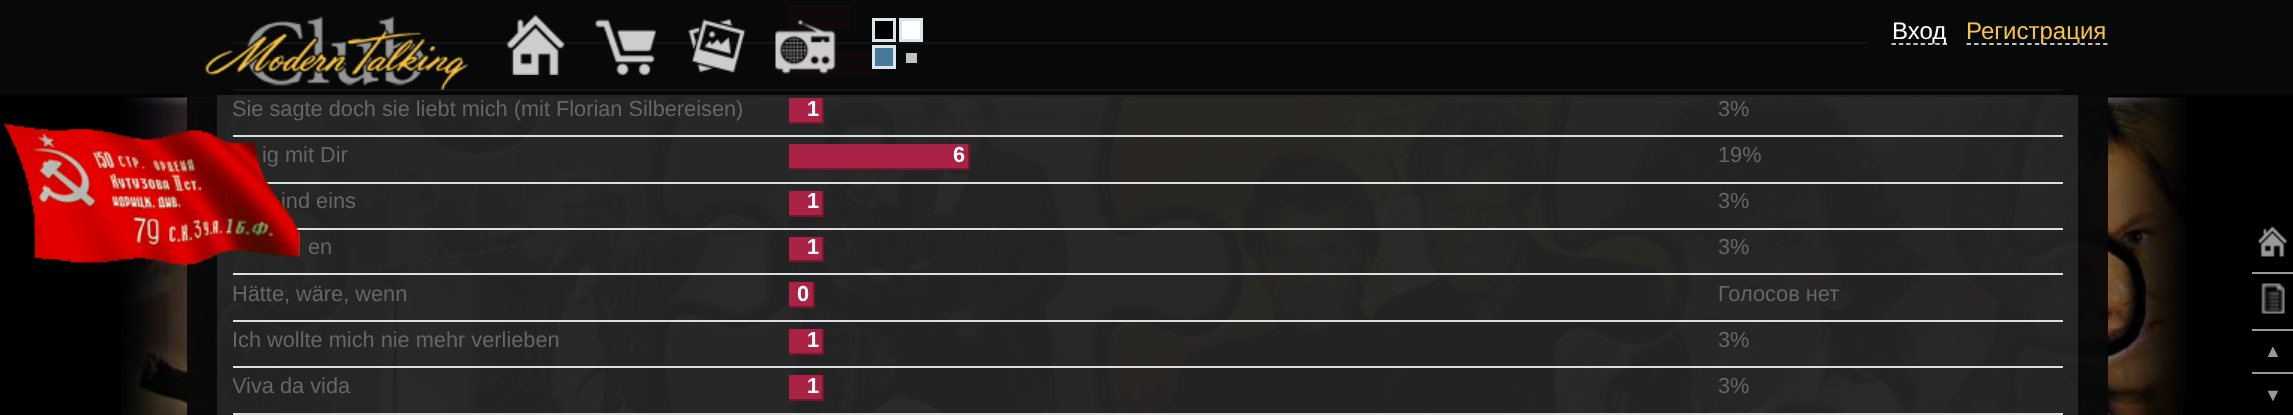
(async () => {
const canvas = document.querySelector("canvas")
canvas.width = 2293
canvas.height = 415
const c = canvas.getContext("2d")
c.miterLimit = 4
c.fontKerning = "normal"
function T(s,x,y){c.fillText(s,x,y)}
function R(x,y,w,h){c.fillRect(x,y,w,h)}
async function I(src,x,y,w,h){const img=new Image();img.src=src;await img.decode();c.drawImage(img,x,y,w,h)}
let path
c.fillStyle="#000"
R(0,0,2293,415)
c.fillStyle="#070808"
R(0,0,2293,95)
c.fillStyle="#121313"
R(233,42,1830,2)
R(233,89,1830,2)
await I("1.png",205,16,264,74)
await I("2.png",506,15,59,60)
await I("3.png",595,19,61,56)
await I("4.png",688,19,58,54)
c.fillStyle="#0f090b"
R(789,5,60,24)
c.fillStyle="#0c090a"
R(849,5,2,25)
R(789,29,62,2)
c.fillStyle="#0f090b"
R(789,51,87,24)
await I("5.png",775,19,61,55)
c.fillStyle="#dae5ec"
R(872,18,24,24)
c.fillStyle="#000"
R(875,21,18,18)
c.fillStyle="#dae5ec"
R(899,18,24,24)
c.fillStyle="#fff"
R(902,21,18,18)
c.fillStyle="#dae5ec"
R(872,45,24,24)
c.fillStyle="#457a9d"
R(875,48,18,18)
c.fillStyle="#c0c0c0"
R(906,53,11,10)
await I("6.png",1867,42,196,2)
path = new Path2D("M1891.5 44h55.5")
c.strokeStyle="#fff"
c.lineWidth=1.5
c.setLineDash([4.5,2.79])
c.stroke(path)
c.font="24px Liberation Sans"
c.fillStyle="#fff"
T("Вход",1892,39)
path = new Path2D("M1966.5 44h141")
c.setLineDash([4.5,3.09])
c.stroke(path)
c.fillStyle="#f6c344"
T("Регистрация",1966,39)
await I("7.png",121,95,2065,320)
c.fillStyle="#dcdee2"
R(233,135,1830,2)
c.font="21.75px Liberation Sans"
c.fillStyle="#666"
T("ig mit Dir",262,162)
c.fillStyle="#dcdee2"
R(266,182,1797,2)
c.fillStyle="#666"
T("ind eins",281,208)
c.fillStyle="#dcdee2"
R(296,228,1767,2)
await I("8.png",4,122,296,144)
c.fillStyle="#0c090a"
R(876,69,2,8)
R(789,75,89,2)
c.fillStyle="#666"
T("Sie sagte doch sie liebt mich (mit Florian Silbereisen)",232,116)
c.fillStyle="#aa2346"
R(789,98,33,24)
c.fillStyle="#74162c"
R(822,98,2,25)
R(789,122,35,2)
c.font="bold 21.75px Liberation Sans"
c.fillStyle="#fff"
T("1",807,116)
c.font="21.75px Liberation Sans"
c.fillStyle="#666"
T("3%",1718,116)
c.fillStyle="#aa2346"
R(789,144,179,24)
c.fillStyle="#74162c"
R(968,144,2,26)
R(789,168,180,2)
c.font="bold 21.75px Liberation Sans"
c.fillStyle="#fff"
T("6",953,162)
c.font="21.75px Liberation Sans"
c.fillStyle="#666"
T("19%",1718,162)
c.fillStyle="#aa2346"
R(789,191,33,24)
c.fillStyle="#74162c"
R(822,191,2,25)
R(789,215,35,2)
c.font="bold 21.75px Liberation Sans"
c.fillStyle="#fff"
T("1",807,208)
c.font="21.75px Liberation Sans"
c.fillStyle="#666"
T("3%",1718,208)
T("en",308,254)
c.fillStyle="#aa2346"
R(789,237,33,23)
c.fillStyle="#74162c"
R(822,237,2,24)
R(789,260,35,2)
c.font="bold 21.75px Liberation Sans"
c.fillStyle="#fff"
T("1",807,254)
c.font="21.75px Liberation Sans"
c.fillStyle="#666"
T("3%",1718,254)
c.fillStyle="#dcdee2"
R(233,273,1830,2)
c.fillStyle="#666"
T("Hätte, wäre, wenn",232,301)
c.fillStyle="#aa2346"
R(789,282,24,24)
c.fillStyle="#74162c"
R(813,282,2,26)
R(789,306,26,2)
c.font="bold 21.75px Liberation Sans"
c.fillStyle="#fff"
T("0",797,301)
c.font="21.75px Liberation Sans"
c.fillStyle="#666"
T("Голосов нет",1718,301)
c.fillStyle="#dcdee2"
R(233,320,1830,2)
c.fillStyle="#666"
T("Ich wollte mich nie mehr verlieben",232,347)
c.fillStyle="#aa2346"
R(789,329,33,24)
c.fillStyle="#74162c"
R(822,329,2,25)
R(789,353,35,2)
c.font="bold 21.75px Liberation Sans"
c.fillStyle="#fff"
T("1",807,347)
c.font="21.75px Liberation Sans"
c.fillStyle="#666"
T("3%",1718,347)
c.fillStyle="#dcdee2"
R(233,366,1830,2)
c.save()
c.beginPath()
c.rect(233,368,1830,37)
c.clip()
c.fillStyle="#666"
T("Viva da vida",232,393)
c.restore()
c.fillStyle="#aa2346"
R(789,375,33,24)
c.fillStyle="#74162c"
R(822,375,2,26)
R(789,399,35,2)
c.font="bold 21.75px Liberation Sans"
c.fillStyle="#fff"
T("1",807,393)
c.font="21.75px Liberation Sans"
c.fillStyle="#666"
T("3%",1718,393)
c.fillStyle="#dcdee2"
R(233,413,1830,2)
await I("9.png",2258,226,30,31)
c.fillStyle="#999"
R(2252,272,41,2)
await I("10.png",2261,283,24,31)
R(2252,329,41,2)
c.font="18px Liberation Sans"
T("▲",2264,357)
R(2252,372,41,2)
T("▼",2264,401)
})()
